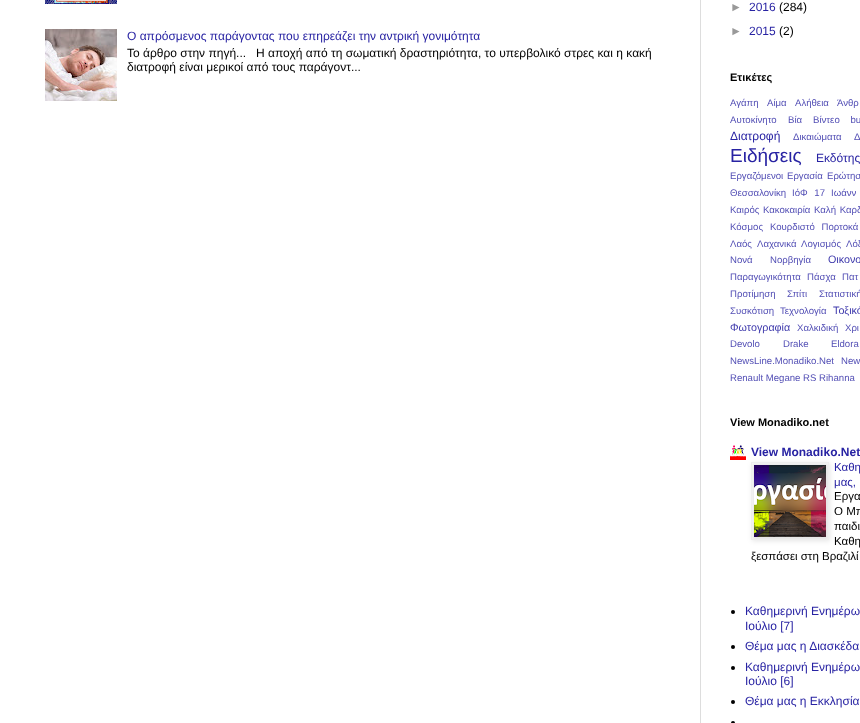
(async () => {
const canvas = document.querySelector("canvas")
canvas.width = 860
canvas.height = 723
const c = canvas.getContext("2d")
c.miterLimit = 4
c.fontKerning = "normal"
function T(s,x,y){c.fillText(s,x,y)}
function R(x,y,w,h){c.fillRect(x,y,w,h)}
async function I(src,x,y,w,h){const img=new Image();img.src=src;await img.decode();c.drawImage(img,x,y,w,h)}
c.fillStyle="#fff"
R(0,0,860,723)
c.fillStyle="#ddd"
R(700,0,1,723)
await I("1.png",45,0,72,4)
await I("2.png",45,29,72,72)
c.font="12px Liberation Sans"
c.fillStyle="#2823a3"
T("Ο απρόσμενος παράγοντας που επηρεάζει την αντρική γονιμότητα",127,40)
c.fillStyle="#000"
T("Το άρθρο στην πηγή...",127,57)
T("Η αποχή από τη σωματική δραστηριότητα, το υπερβολικό στρες και η κακή",256,57)
T("διατροφή είναι μερικοί από τους παράγοντ...",127,71)
c.fillStyle="#999"
T("►",730,11)
c.fillStyle="#2823a3"
T("2016",749,11)
c.fillStyle="#000"
T("(284)",779,11)
c.fillStyle="#999"
T("►",730,35)
c.fillStyle="#2823a3"
T("2015",749,35)
c.fillStyle="#000"
T("(2)",779,35)
c.font="bold 11px Liberation Sans"
T("Ετικέτες",730,81)
c.font="9.6px Liberation Sans"
c.fillStyle="#534fb5"
T("Αγάπη",730,106)
T("Αίμα",767,106)
T("Αλήθεια",795,106)
T("Άνθρ",837,106)
T("Αυτοκίνητο",730,123)
T("Βία",788,123)
c.wordSpacing="8px"
T("Βίντεο bu",813,123)
c.wordSpacing="0px"
c.font="12px Liberation Sans"
c.fillStyle="#2823a3"
T("Διατροφή",730,140)
c.font="9.6px Liberation Sans"
c.fillStyle="#534fb5"
T("Δικαιώματα",793,140)
T("Δ",854,140)
c.font="19px Liberation Sans"
c.fillStyle="#2823a3"
T("Ειδήσεις",730,162)
c.font="12px Liberation Sans"
T("Εκδότης",816,162)
c.font="9.6px Liberation Sans"
c.fillStyle="#534fb5"
T("Εργαζόμενοι",730,179)
T("Εργασία",787,179)
T("Ερώτησ",827,179)
T("Θεσσαλονίκη",730,196)
c.wordSpacing="4px"
T("ΙόΦ 17",792,196)
T("Ιωάνν",831,196)
c.wordSpacing="0px"
T("Καιρός",730,213)
T("Κακοκαιρία",763,213)
c.wordSpacing="1px"
T("Καλή Καρδ",814,213)
c.wordSpacing="0px"
T("Κόσμος",730,230)
c.wordSpacing="4px"
T("Κουρδιστό Πορτοκά",770,230)
c.wordSpacing="0px"
T("Λαός",730,247)
T("Λαχανικά",757,247)
T("Λογισμός",801,247)
T("Λόξ",846,247)
T("Νονά",730,263)
T("Νορβηγία",770,263)
c.font="10.75px Liberation Sans"
c.fillStyle="#3e39ac"
T("Οικονο",828,263)
c.font="9.6px Liberation Sans"
c.fillStyle="#534fb5"
T("Παραγωγικότητα",730,280)
T("Πάσχα",807,280)
T("Πατ",842,280)
T("Προτίμηση",730,297)
T("Σπίτι",787,297)
T("Στατιστική",819,297)
T("Συσκότιση",730,314)
T("Τεχνολογία",780,314)
c.font="10.75px Liberation Sans"
c.fillStyle="#3e39ac"
T("Τοξικό",833,314)
T("Φωτογραφία",730,331)
c.font="9.6px Liberation Sans"
c.fillStyle="#534fb5"
T("Χαλκιδική",797,331)
T("Χρι",845,331)
T("Devolo",730,347)
T("Drake",783,347)
T("Eldora",831,347)
T("NewsLine.Monadiko.Net",730,364)
T("New",841,364)
T("Renault Megane RS Rihanna",730,381)
c.font="bold 11px Liberation Sans"
c.fillStyle="#000"
T("View Monadiko.net",730,426)
await I("3.png",730,445,16,15)
c.font="bold 12px Liberation Sans"
c.fillStyle="#2823a3"
T("View Monadiko.Net",751,456)
c.fillStyle="#0000001a"
c.filter="blur(2.5px)"
c.beginPath()
c.rect(752,463,78,78)
c.fill()
c.filter="none"
c.strokeStyle="#eee"
c.strokeRect(751.5,462.5,77,77)
await I("4.png",754,465,72,72)
c.font="11.5px Liberation Sans"
c.fillStyle="#2823a3"
T("Καθη",834,471)
T("μας,",834,486)
c.fillStyle="#000"
T("Εργα",834,500)
T("Ο Μπ",834,515)
T("παιδι",834,530)
T("Καθη",834,545)
T("ξεσπάσει στη Βραζιλί",751,560)
c.beginPath()
c.arc(733,612,2,0,7)
c.fill()
c.font="12px Liberation Sans"
c.fillStyle="#2823a3"
T("Καθημερινή Ενημέρω",745,615)
T("Ιούλιο [7]",745,630)
c.fillStyle="#000"
c.beginPath()
c.arc(733,647,2,0,7)
c.fill()
c.fillStyle="#2823a3"
T("Θέμα μας η Διασκέδα",745,650)
c.fillStyle="#000"
c.beginPath()
c.arc(733,668,2,0,7)
c.fill()
c.fillStyle="#2823a3"
T("Καθημερινή Ενημέρω",745,671)
T("Ιούλιο [6]",745,685)
c.fillStyle="#000"
c.beginPath()
c.arc(733,702,2,0,7)
c.fill()
c.fillStyle="#2823a3"
T("Θέμα μας η Εκκλησία",745,705)
c.fillStyle="#000"
c.beginPath()
c.arc(733,723,2,0,7)
c.fill()
})()
